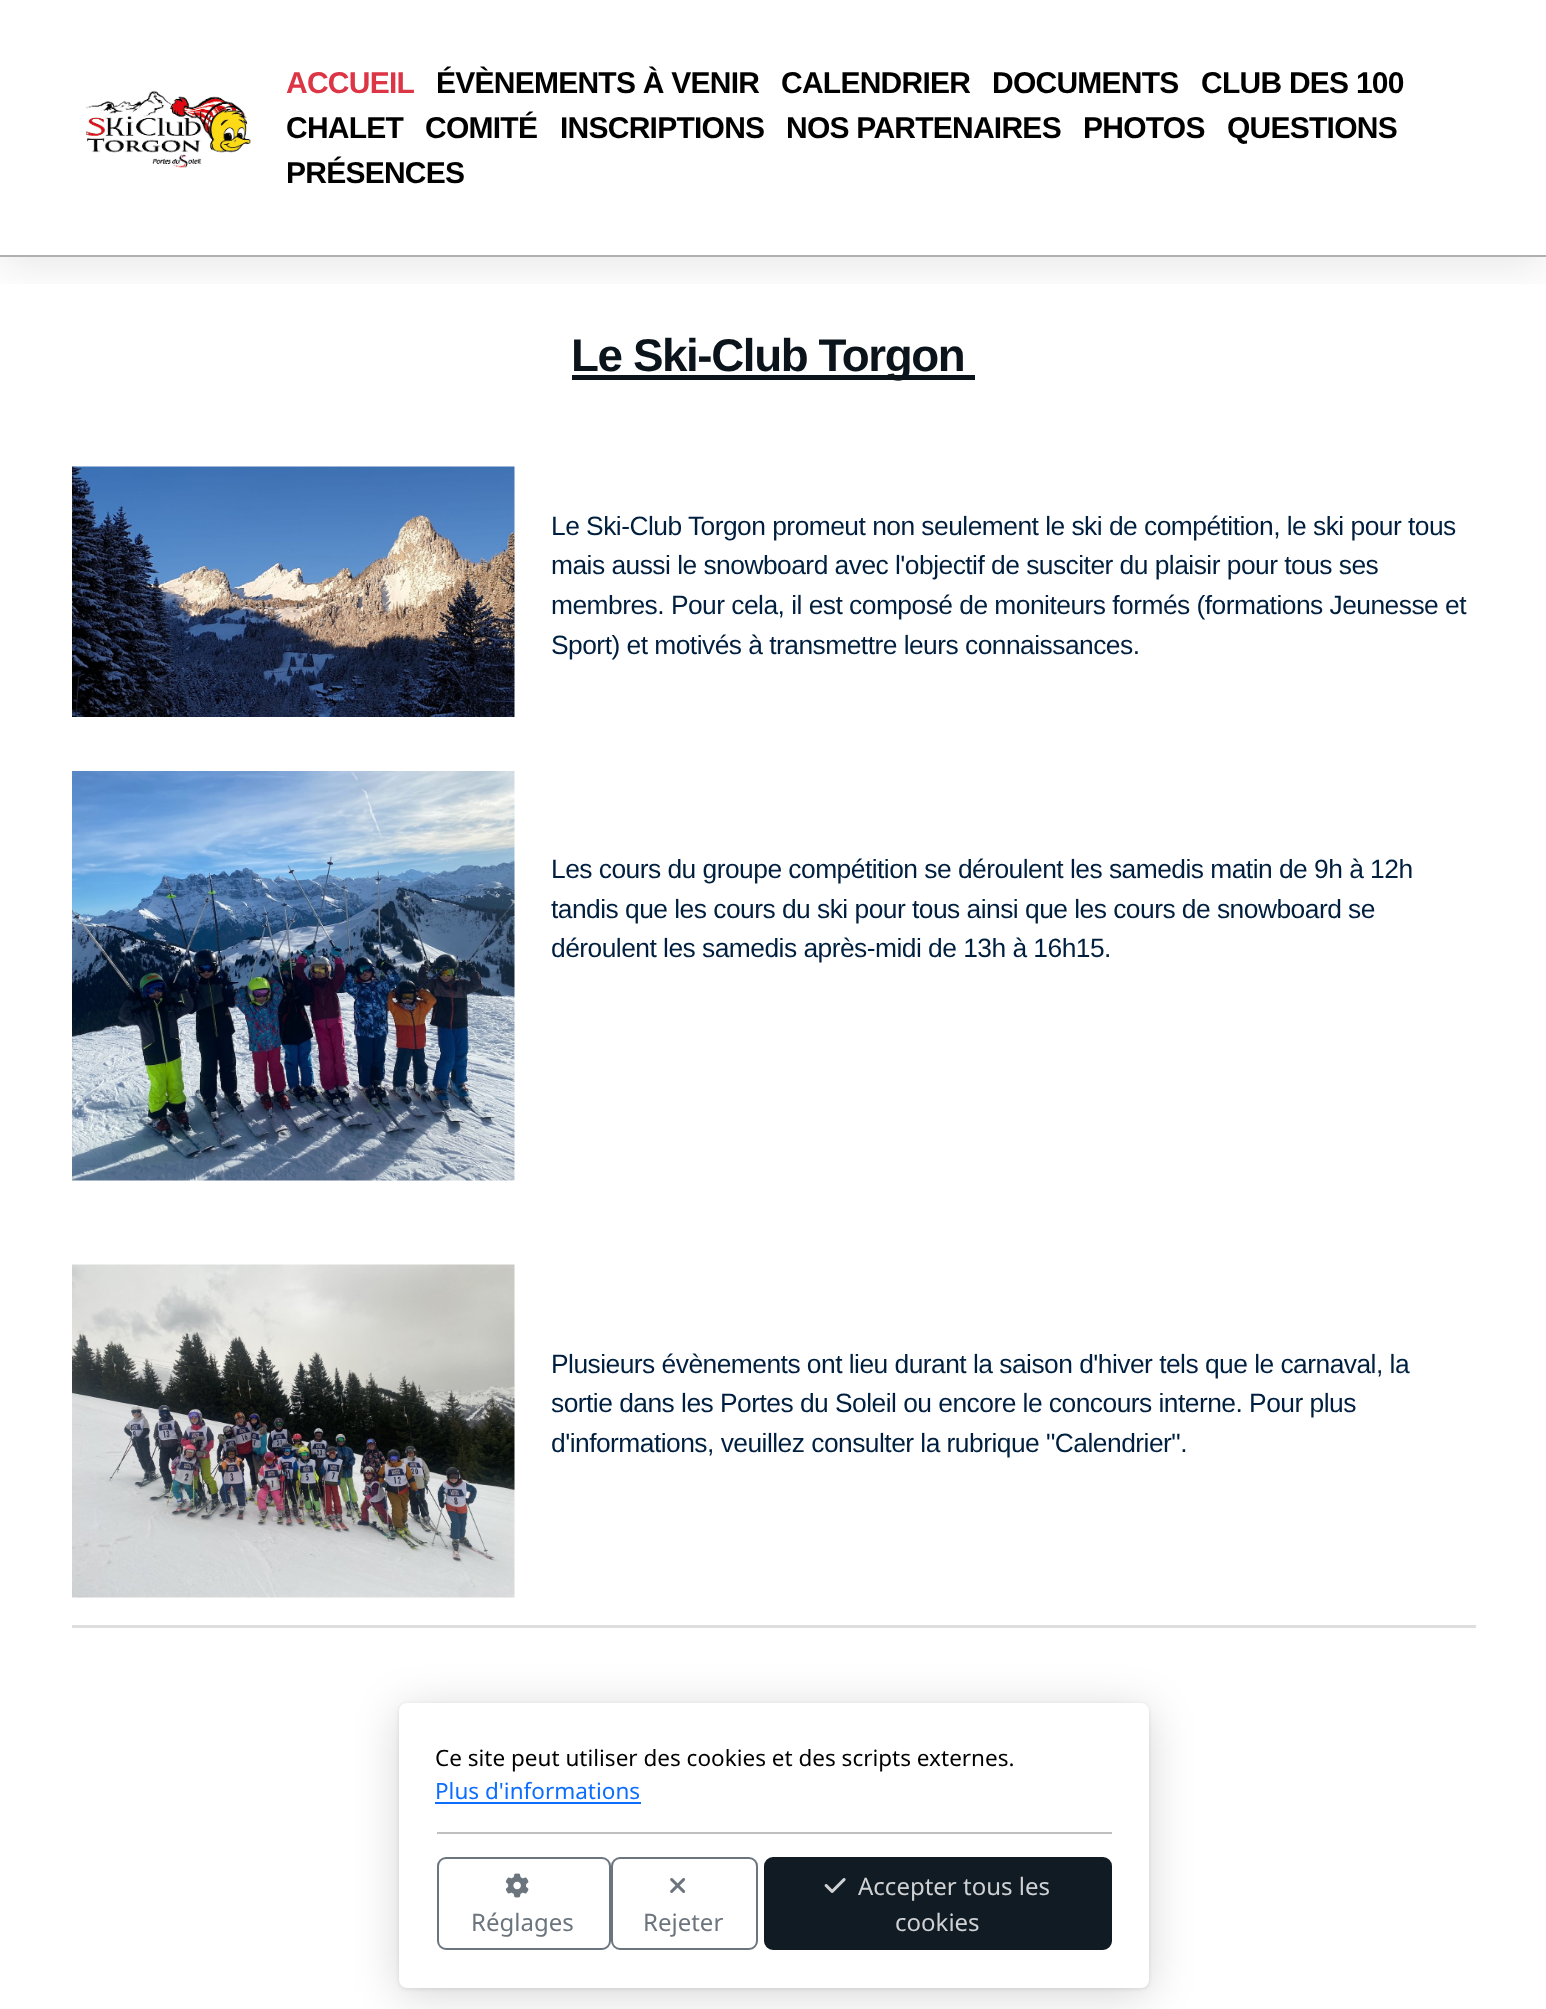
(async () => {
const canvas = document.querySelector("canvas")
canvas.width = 1546
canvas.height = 2009
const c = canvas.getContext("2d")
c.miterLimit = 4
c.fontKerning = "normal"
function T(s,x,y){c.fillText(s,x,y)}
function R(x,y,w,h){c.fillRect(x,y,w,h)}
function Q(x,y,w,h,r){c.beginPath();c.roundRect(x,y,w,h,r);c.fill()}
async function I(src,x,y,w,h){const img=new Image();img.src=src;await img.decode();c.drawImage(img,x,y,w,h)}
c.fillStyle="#fff"
R(0,0,1546,2009)
c.save()
c.beginPath()
c.rect(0,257,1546,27)
c.clip()
c.fillStyle="#00000017"
c.filter="blur(22px)"
c.beginPath()
c.rect(0,11,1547,256)
c.fill()
c.filter="none"
c.restore()
c.fillStyle="#b0b0b0"
R(0,255,1546,2)
await I("1.png",86,90,165,78)
c.letterSpacing="-0.75px"
c.font="bold 30px Liberation Sans"
c.fillStyle="#dc3545"
T("ACCUEIL",286,93)
c.fillStyle="#000"
T("ÉVÈNEMENTS À VENIR",436,93)
T("CALENDRIER",781,93)
T("DOCUMENTS",992,93)
T("CLUB DES 100",1201,93)
T("CHALET",286,138)
T("COMITÉ",425,138)
T("INSCRIPTIONS",560,138)
T("NOS PARTENAIRES",786,138)
T("PHOTOS",1083,138)
T("QUESTIONS",1227,138)
T("PRÉSENCES",286,183)
c.fillStyle="#0c141b"
R(572,375,403,5)
c.letterSpacing="-1.4px"
c.font="bold 45.75px Liberation Sans"
T("Le Ski-Club Torgon",571,371)
await I("2.png",72,466,443,251)
c.letterSpacing="-0.53px"
c.font="26.4px Liberation Sans"
c.fillStyle="#001f3f"
T("Le Ski-Club Torgon promeut non seulement le ski de compétition, le ski pour tous",551,535)
T("mais aussi le snowboard avec l'objectif de susciter du plaisir pour tous ses",551,574)
T("membres. Pour cela, il est composé de moniteurs formés (formations Jeunesse et",551,614)
T("Sport) et motivés à transmettre leurs connaissances.",551,654)
await I("3.png",72,771,443,410)
T("Les cours du groupe compétition se déroulent les samedis matin de 9h à 12h",551,878)
T("tandis que les cours du ski pour tous ainsi que les cours de snowboard se",551,918)
T("déroulent les samedis après-midi de 13h à 16h15.",551,957)
await I("4.png",72,1264,443,334)
T("Plusieurs évènements ont lieu durant la saison d'hiver tels que le carnaval, la",551,1373)
T("sortie dans les Portes du Soleil ou encore le concours interne. Pour plus",551,1412)
T("d'informations, veuillez consulter la rubrique \"Calendrier\".",551,1452)
c.fillStyle="#dedede"
R(72,1625,1404,3)
c.fillStyle="#00000029"
c.filter="blur(22.5px)"
c.beginPath()
c.roundRect(399,1710,750,285,8)
c.fill()
c.filter="none"
c.fillStyle="#0000001a"
c.filter="blur(2px)"
c.beginPath()
c.roundRect(399,1704,750,285,8)
c.fill()
c.filter="none"
c.fillStyle="#fff"
Q(399,1703,750,285,8)
c.letterSpacing="0px"
c.font="22.5px Noto Sans"
c.fillStyle="#000"
T("Ce site peut utiliser des cookies et des scripts externes.",435,1766)
c.fillStyle="#0d6efd"
T("Plus d'informations",435,1799)
R(435,1802,206,2)
c.fillStyle="#bfbfbf"
R(437,1832,675,2)
c.beginPath()
c.roundRect(438,1858,172,91,8)
c.strokeStyle="#6c757d"
c.lineWidth=2
c.stroke()
await I("5.png",505,1873,24,25)
c.font="24px Noto Sans"
c.fillStyle="#6c757d"
T("Réglages",471,1931)
c.beginPath()
c.roundRect(612,1858,145,91,8)
c.stroke()
await I("6.png",670,1878,16,15)
T("Rejeter",643,1931)
c.fillStyle="#101b24"
c.beginPath()
c.roundRect(765,1858,346,91,8)
c.fill()
c.strokeStyle="#101b24"
c.stroke()
await I("7.png",824,1878,22,15)
c.fillStyle="#cfd1d3"
T("Accepter tous les",858,1895)
T("cookies",895,1931)
})()
